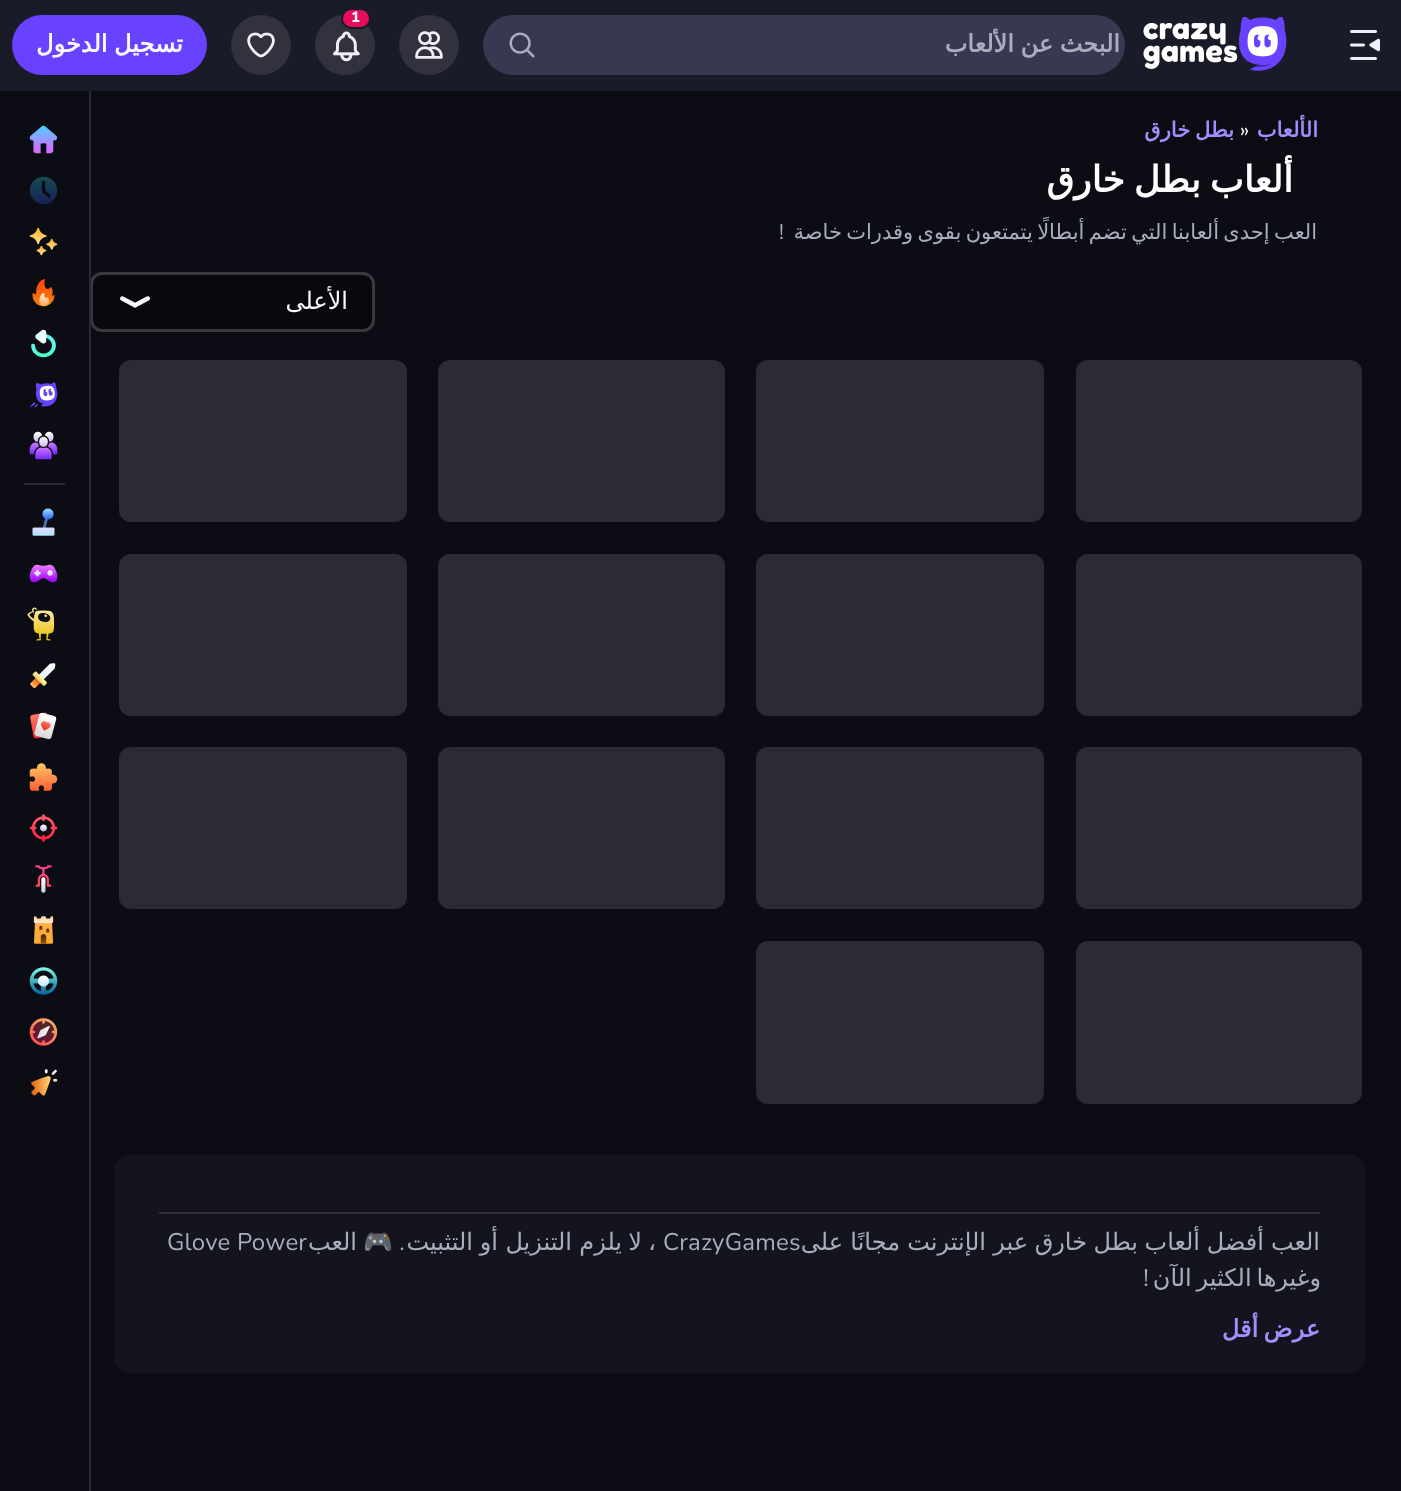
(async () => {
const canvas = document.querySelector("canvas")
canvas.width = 1401
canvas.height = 1491
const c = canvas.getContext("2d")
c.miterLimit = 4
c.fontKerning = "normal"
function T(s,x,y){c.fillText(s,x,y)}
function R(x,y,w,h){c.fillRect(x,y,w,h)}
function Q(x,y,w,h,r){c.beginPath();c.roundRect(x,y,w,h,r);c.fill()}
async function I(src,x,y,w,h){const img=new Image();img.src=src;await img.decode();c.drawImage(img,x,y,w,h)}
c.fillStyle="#0c0d14"
R(0,0,1401,1491)
c.fillStyle="#08090e"
Q(90,272,285,60,12)
c.beginPath()
c.roundRect(91.5,273.5,282,57,10.5)
c.strokeStyle="#ffffff33"
c.lineWidth=3
c.stroke()
c.fillStyle="#28293d"
R(89,90,2,1401)
c.fillStyle="#1a1b28"
R(0,0,1401,91)
await I("1.png",1350,30,30,30)
await I("2.png",1239,17,48,54)
await I("3.png",1143,23,95,46)
c.fillStyle="#373952"
Q(483,15,642,60,30)
c.wordSpacing="-1px"
c.direction="rtl"
c.font="bold 24px DejaVu Sans"
c.fillStyle="#aaadbe"
T("البحث عن الألعاب",1120,52)
await I("4.png",509,32,26,26)
c.fillStyle="#31323e"
c.beginPath()
c.arc(429,45,30,0,7)
c.fill()
await I("5.png",415,31,28,28)
c.beginPath()
c.arc(345,45,30,0,7)
c.fill()
c.fillStyle="#e70d5c"
c.beginPath()
c.roundRect(342,9,28,19,9.5)
c.fill()
c.strokeStyle="#1a1b28"
c.lineWidth=2
c.stroke()
c.letterSpacing="0.2px"
c.wordSpacing="0px"
c.direction="ltr"
c.font="800 15px Nunito"
c.fillStyle="#f9faff"
T("1",351,22)
await I("6.png",333,31,27,31)
c.fillStyle="#31323e"
c.beginPath()
c.arc(261,45,30,0,7)
c.fill()
await I("7.png",247,32,28,26)
c.fillStyle="#6842ff"
Q(12,15,195,60,30)
c.letterSpacing="0px"
c.wordSpacing="-1px"
c.direction="rtl"
c.font="bold 24px DejaVu Sans"
c.fillStyle="#f9faff"
T("تسجيل الدخول",183,52)
c.letterSpacing="0.2px"
c.wordSpacing="0px"
c.font="bold 21px DejaVu Sans"
c.fillStyle="#a48eff"
T("الألعاب",1318,137)
c.direction="ltr"
c.font="21px Nunito"
c.fillStyle="#f9faff"
T("»",1240,137)
c.wordSpacing="-2px"
c.direction="rtl"
c.font="bold 21px DejaVu Sans"
c.fillStyle="#a48eff"
T("بطل خارق",1234,137)
c.wordSpacing="-2.5px"
c.font="bold 36px DejaVu Sans"
c.fillStyle="#fff"
T("ألعاب بطل خارق",1293,192)
c.save()
c.beginPath()
c.rect(779,216,538,32)
c.clip()
c.font="21px DejaVu Sans"
c.fillStyle="#aaadbe"
T("العب إحدى ألعابنا التي تضم أبطالًا يتمتعون بقوى وقدرات خاصة",1317,239)
c.restore()
c.wordSpacing="0px"
c.font="21px Nunito"
c.fillStyle="#aaadbe"
T("!",784,239)
c.letterSpacing="0px"
c.font="24px DejaVu Sans"
c.fillStyle="#f9faff"
T("الأعلى",348,309)
await I("8.png",120,296,30,12)
c.fillStyle="#2b2c33"
Q(1076,360,286,162,12)
Q(756,360,288,162,12)
Q(438,360,287,162,12)
Q(119,360,288,162,12)
Q(1076,554,286,162,12)
Q(756,554,288,162,12)
Q(438,554,287,162,12)
Q(119,554,288,162,12)
Q(1076,747,286,162,12)
Q(756,747,288,162,12)
Q(438,747,287,162,12)
Q(119,747,288,162,12)
Q(1076,941,286,163,12)
Q(756,941,288,163,12)
c.fillStyle="#13141e"
Q(114,1155,1251,218,15)
c.fillStyle="#2f3039"
R(159,1212,1161,2)
c.letterSpacing="0.2px"
c.fillStyle="#aaadbe"
T("العب",1320,1250)
T("أفضل",1264,1250)
T("ألعاب",1200,1250)
T("بطل",1138,1250)
T("خارق",1087,1250)
T("عبر",1028,1250)
T("الإنترنت",986,1250)
T("مجانًا",900,1250)
T("على",843,1250)
c.direction="ltr"
c.font="24px Nunito"
T("CrazyGames",663,1250)
c.direction="rtl"
c.font="24px DejaVu Sans"
T("،",656,1250)
T("لا",642,1250)
T("يلزم",622,1250)
T("التنزيل",572,1250)
T("أو",498,1250)
T("التثبيت",473,1250)
c.font="24px Nunito"
T(".",405,1250)
c.font="24px Noto Color Emoji"
T("🎮",393,1250)
c.font="24px DejaVu Sans"
T("العب",357,1250)
c.direction="ltr"
c.font="24px Nunito"
T("Glove Power",167,1250)
c.wordSpacing="-3px"
c.direction="rtl"
c.font="24px DejaVu Sans"
T("وغيرها الكثير الآن",1321,1286)
c.wordSpacing="0px"
c.font="24px Nunito"
T("!",1149,1286)
c.wordSpacing="-2.5px"
c.font="bold 24px DejaVu Sans"
c.fillStyle="#a48eff"
T("عرض أقل",1320,1337)
await I("9.png",29,125,29,29)
await I("10.png",29,176,29,29)
await I("11.png",29,227,29,29)
await I("12.png",32,279,23,28)
await I("13.png",31,329,25,29)
await I("14.png",29,382,29,26)
await I("15.png",29,431,29,29)
c.fillStyle="#292a30"
R(24,483,41,2)
await I("16.png",32,508,23,28)
await I("17.png",29,564,29,19)
await I("18.png",27,607,28,34)
await I("19.png",30,663,26,26)
await I("20.png",30,712,27,28)
await I("21.png",29,763,29,28)
await I("22.png",29,814,29,28)
await I("23.png",35,865,17,28)
await I("24.png",33,916,21,28)
await I("25.png",29,967,29,28)
await I("26.png",29,1018,29,28)
await I("27.png",31,1069,27,27)
})()
